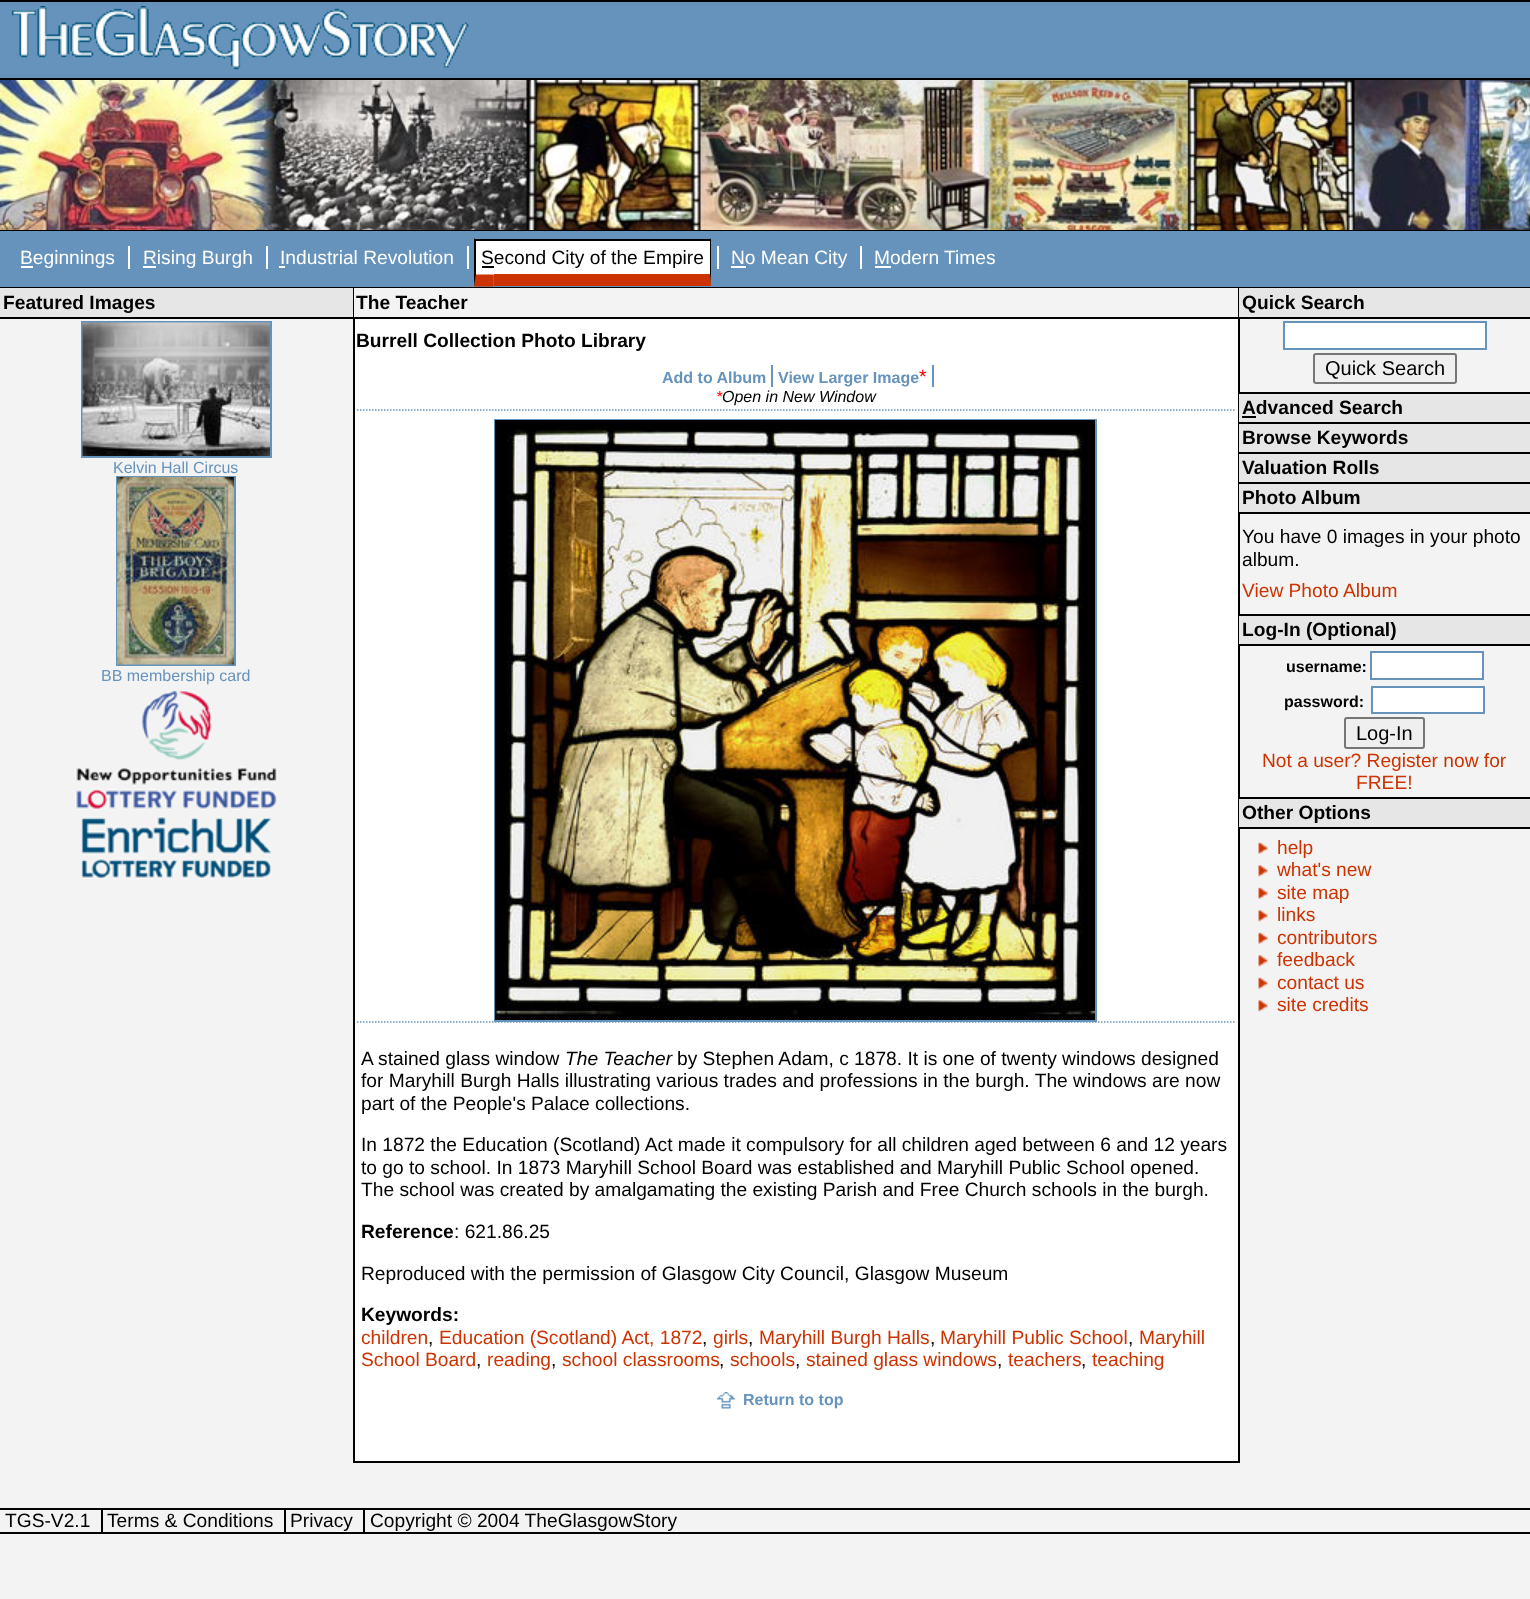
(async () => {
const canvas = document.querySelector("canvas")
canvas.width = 1530
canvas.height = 1599
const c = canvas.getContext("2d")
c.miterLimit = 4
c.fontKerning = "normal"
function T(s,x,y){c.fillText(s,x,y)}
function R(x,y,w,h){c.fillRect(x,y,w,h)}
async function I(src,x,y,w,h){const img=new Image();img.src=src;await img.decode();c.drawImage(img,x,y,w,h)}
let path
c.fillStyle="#f3f3f3"
R(0,0,1530,1599)
c.fillStyle="#6693bc"
R(0,2,1530,76)
c.fillStyle="#000"
R(0,0,1530,2)
await I("1.png",11,6,458,64)
await I("2.png",0,80,1530,150)
R(0,78,1530,2)
R(0,230,1530,1)
c.fillStyle="#6693bc"
R(0,231,1530,56)
c.fillStyle="#000"
R(0,287,1530,1)
c.fillStyle="#fff"
R(21,266,12,2)
c.font="19.2px Liberation Sans"
T("Beginnings",20,264)
R(143,266,13,2)
T("Rising Burgh",143,264)
R(128,246,2,23)
T("Industrial Revolution",280,264)
R(266,246,2,23)
R(279,266,6,2)
R(476,241,18,34)
R(494,241,216,33)
c.fillStyle="#000"
R(482,266,12,2)
T("Second City of the Empire",481,264)
c.fillStyle="#fff"
R(467,246,2,23)
c.fillStyle="#000"
R(474,239,237,2)
c.fillStyle="#c30"
path = new Path2D("M493.5 286.5h-19.5l1.5-12h18z")
c.fill(path)
c.fillStyle="#000"
path = new Path2D("M474 286v-48l2 2v34z")
c.fill(path)
path = new Path2D("M711 238v48l-1-12v-34z")
c.fill(path)
c.fillStyle="#c30"
path = new Path2D("M711 286h-217v-12h216z")
c.fill(path)
c.fillStyle="#fff"
R(731,266,15,2)
T("No Mean City",731,264)
R(717,246,2,23)
T("Modern Times",874,264)
R(860,246,2,23)
R(875,266,16,2)
c.fillStyle="#e6e6e6"
R(0,288,353,29)
c.fillStyle="#000"
R(0,317,353,2)
c.font="bold 19.2px Liberation Sans"
T("Featured Images",3,309)
c.strokeStyle="#6693bc"
c.lineWidth=2
c.strokeRect(82,322,189,135)
await I("3.png",82,322,188,134)
c.font="16px Liberation Sans"
c.fillStyle="#6693bc"
T("Kelvin Hall Circus",113,473)
c.strokeRect(117,477,118,188)
await I("4.png",117,477,117,188)
T("BB membership card",101,681)
await I("5.png",75,690,203,120)
await I("6.png",81,816,191,63)
c.fillStyle="#fff"
R(355,319,883,1142)
c.fillStyle="#000"
R(1238,288,2,1175)
R(353,1461,886,2)
R(353,288,2,1175)
c.fillStyle="#f3f3f3"
R(354,288,1,29)
c.fillStyle="#000"
R(354,317,884,2)
c.font="bold 19.2px Liberation Sans"
T("The Teacher",356,309)
T("Burrell Collection Photo Library",356,347)
path = new Path2D("M357 410h877.5")
c.lineWidth=1.5
c.setLineDash([1.5,1.5])
c.stroke(path)
c.font="bold 16px Liberation Sans"
c.fillStyle="#6693bc"
T("Add to Album",662,383)
T("View Larger Image",778,383)
R(771,365,2,22)
c.font="19.2px Liberation Sans"
c.fillStyle="#f00"
T("*",919,383)
c.fillStyle="#6693bc"
R(932,365,2,22)
c.font="italic 16px Liberation Sans"
c.fillStyle="#f00"
T("*",716,402)
c.fillStyle="#000"
T("Open in New Window",722,402)
path = new Path2D("M357 1022h877.5")
c.stroke(path)
c.lineWidth=2
c.setLineDash([])
c.strokeRect(495,420,601,601)
await I("7.png",495,420,600,600)
c.font="19.2px Liberation Sans"
T("A stained glass window",361,1065)
c.font="italic 19.2px Liberation Sans"
T("The Teacher",565,1065)
c.font="19.2px Liberation Sans"
T("by Stephen Adam, c 1878. It is one of twenty windows designed",677,1065)
T("for Maryhill Burgh Halls illustrating various trades and professions in the burgh. The windows are now",361,1087)
T("part of the People's Palace collections.",361,1110)
T("In 1872 the Education (Scotland) Act made it compulsory for all children aged between 6 and 12 years",361,1151)
T("to go to school. In 1873 Maryhill School Board was established and Maryhill Public School opened.",361,1174)
T("The school was created by amalgamating the existing Parish and Free Church schools in the burgh.",361,1196)
c.font="bold 19.2px Liberation Sans"
T("Reference",361,1238)
c.font="19.2px Liberation Sans"
T(": 621.86.25",454,1238)
T("Reproduced with the permission of Glasgow City Council, Glasgow Museum",361,1280)
c.font="bold 19.2px Liberation Sans"
T("Keywords:",361,1321)
c.font="19.2px Liberation Sans"
c.fillStyle="#c30"
T("children",361,1344)
c.fillStyle="#000"
T(",",428,1344)
c.fillStyle="#c30"
T("Education (Scotland) Act, 1872",439,1344)
c.fillStyle="#000"
T(",",702,1344)
c.fillStyle="#c30"
T("girls",713,1344)
c.fillStyle="#000"
T(",",748,1344)
c.fillStyle="#c30"
T("Maryhill Burgh Halls",759,1344)
c.fillStyle="#000"
T(",",930,1344)
c.fillStyle="#c30"
T("Maryhill Public School",940,1344)
c.fillStyle="#000"
T(",",1128,1344)
c.fillStyle="#c30"
T("Maryhill",1139,1344)
T("School Board",361,1366)
c.fillStyle="#000"
T(",",476,1366)
c.fillStyle="#c30"
T("reading",487,1366)
c.fillStyle="#000"
T(",",551,1366)
c.fillStyle="#c30"
T("school classrooms",562,1366)
c.fillStyle="#000"
T(",",719,1366)
c.fillStyle="#c30"
T("schools",730,1366)
c.fillStyle="#000"
T(",",795,1366)
c.fillStyle="#c30"
T("stained glass windows",806,1366)
c.fillStyle="#000"
T(",",997,1366)
c.fillStyle="#c30"
T("teachers",1008,1366)
c.fillStyle="#000"
T(",",1081,1366)
c.fillStyle="#c30"
T("teaching",1092,1366)
await I("8.png",717,1392,19,17)
c.font="bold 16px Liberation Sans"
c.fillStyle="#6693bc"
T("Return to top",743,1405)
c.fillStyle="#e6e6e6"
R(1239,288,291,29)
c.fillStyle="#000"
R(1239,317,291,2)
c.font="bold 19.2px Liberation Sans"
T("Quick Search",1242,309)
c.fillStyle="#fff"
c.beginPath()
c.rect(1284,322,202,27)
c.fill()
c.stroke()
c.fillStyle="#efefef"
c.beginPath()
c.roundRect(1314,354,142,29,2)
c.fill()
c.strokeStyle="#767676"
c.stroke()
c.font="20px Liberation Sans"
c.fillStyle="#000"
T("Quick Search",1325,375)
c.fillStyle="#e6e6e6"
R(1239,394,291,28)
c.fillStyle="#000"
R(1239,392,291,2)
c.font="bold 19.2px Liberation Sans"
T("Advanced Search",1242,414)
R(1242,416,14,2)
c.fillStyle="#e6e6e6"
R(1239,424,291,28)
c.fillStyle="#000"
R(1239,422,291,2)
T("Browse Keywords",1242,444)
c.fillStyle="#e6e6e6"
R(1239,454,291,28)
c.fillStyle="#000"
R(1239,452,291,2)
T("Valuation Rolls",1242,474)
c.fillStyle="#e6e6e6"
R(1239,484,291,28)
c.fillStyle="#000"
R(1239,482,291,2)
R(1239,512,291,2)
T("Photo Album",1242,504)
c.font="19.2px Liberation Sans"
T("You have 0 images in your photo",1242,543)
T("album.",1242,566)
c.fillStyle="#c30"
T("View Photo Album",1242,597)
c.fillStyle="#e6e6e6"
R(1239,616,291,28)
c.fillStyle="#000"
R(1239,614,291,2)
R(1239,644,291,2)
c.font="bold 19.2px Liberation Sans"
T("Log-In (Optional)",1242,636)
c.font="bold 16px Liberation Sans"
T("username:",1286,672)
c.fillStyle="#fff"
c.beginPath()
c.rect(1371,652,112,27)
c.fill()
c.strokeStyle="#6693bc"
c.stroke()
c.fillStyle="#000"
T("password:",1284,707)
c.fillStyle="#fff"
c.beginPath()
c.rect(1372,687,112,26)
c.fill()
c.stroke()
c.fillStyle="#efefef"
c.beginPath()
c.roundRect(1345,718,79,30,2)
c.fill()
c.strokeStyle="#767676"
c.stroke()
c.font="20px Liberation Sans"
c.fillStyle="#000"
T("Log-In",1356,740)
c.font="19.2px Liberation Sans"
c.fillStyle="#c30"
T("Not a user? Register now for",1262,767)
T("FREE!",1356,789)
c.fillStyle="#e6e6e6"
R(1239,799,291,28)
c.fillStyle="#000"
R(1239,797,291,2)
R(1239,827,291,2)
c.font="bold 19.2px Liberation Sans"
T("Other Options",1242,819)
await I("9.png",1258,842,10,12)
c.font="19.2px Liberation Sans"
c.fillStyle="#c30"
T("help",1277,854)
await I("10.png",1258,865,10,12)
T("what's new",1277,876)
await I("9.png",1258,887,10,12)
T("site map",1277,899)
await I("10.png",1258,910,10,12)
T("links",1277,921)
await I("9.png",1258,932,10,12)
T("contributors",1277,944)
await I("10.png",1258,955,10,12)
T("feedback",1277,966)
await I("9.png",1258,977,10,12)
T("contact us",1277,989)
await I("10.png",1258,1000,10,12)
T("site credits",1277,1011)
c.fillStyle="#000"
R(0,1508,1530,2)
R(0,1532,1530,2)
T("TGS-V2.1",5,1527)
T("Terms & Conditions",107,1527)
R(101,1509,2,23)
T("Privacy",290,1527)
R(284,1509,2,23)
T("Copyright © 2004 TheGlasgowStory",370,1527)
R(363,1509,2,23)
})()
